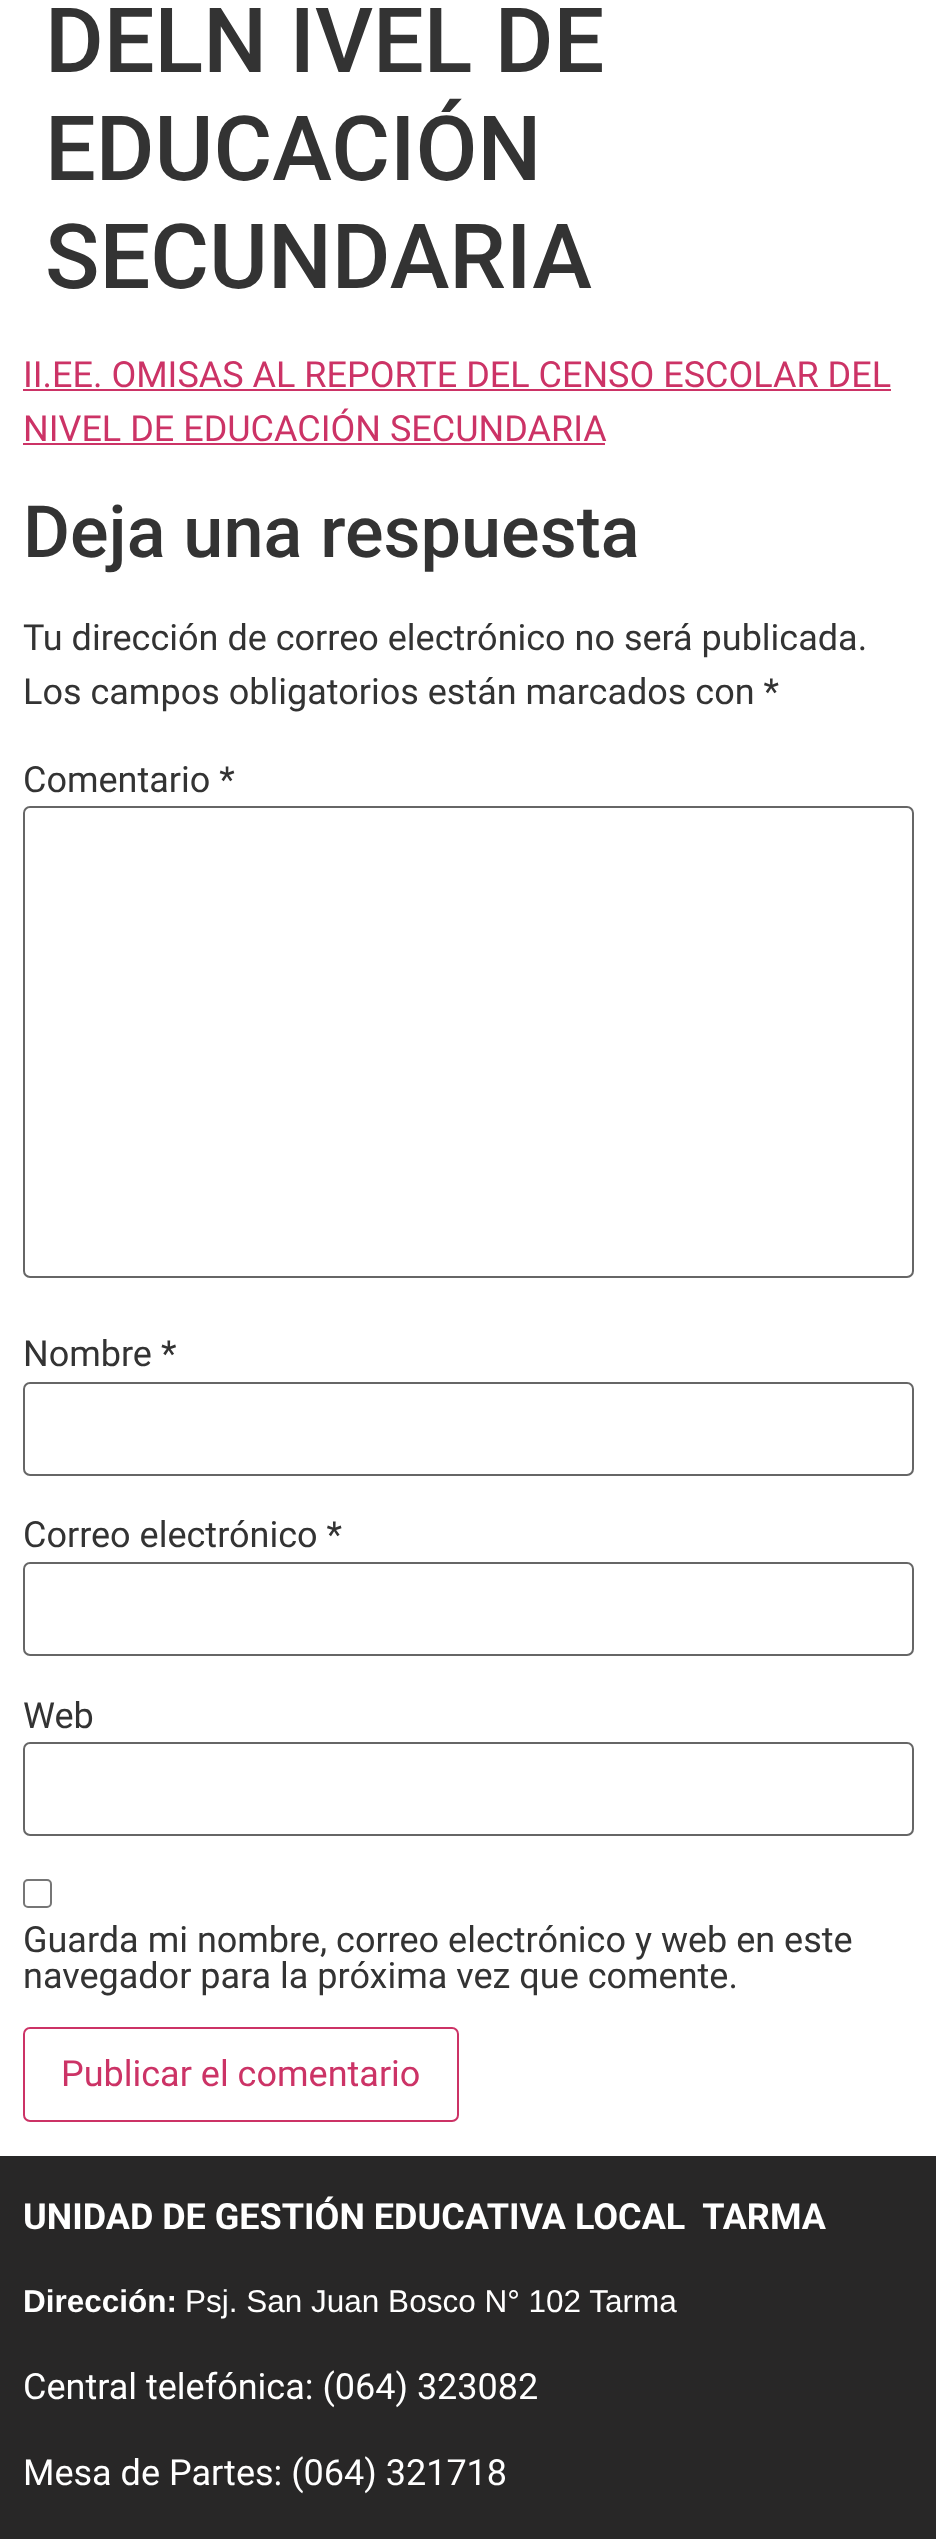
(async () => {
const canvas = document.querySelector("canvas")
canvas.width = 936
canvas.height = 2539
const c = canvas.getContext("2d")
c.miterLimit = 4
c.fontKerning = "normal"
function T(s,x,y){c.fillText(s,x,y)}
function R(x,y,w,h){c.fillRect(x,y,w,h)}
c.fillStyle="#fff"
R(0,0,936,2539)
c.font="500 90px Roboto"
c.fillStyle="#333"
T("DELN IVEL DE",45,72)
T("EDUCACIÓN",45,180)
T("SECUNDARIA",45,288)
c.font="36px Roboto"
c.fillStyle="#c36"
T("II.EE. OMISAS AL REPORTE DEL CENSO ESCOLAR DEL",23,387)
R(23,389,868,2)
T("NIVEL DE EDUCACIÓN SECUNDARIA",23,441)
R(23,443,582,2)
c.font="500 72px Roboto"
c.fillStyle="#333"
T("Deja una respuesta",23,557)
c.font="36px Roboto"
T("Tu dirección de correo electrónico no será publicada.",23,650)
T("Los campos obligatorios están marcados con *",23,704)
T("Comentario *",23,792)
c.beginPath()
c.roundRect(24,807,889,470,6)
c.strokeStyle="#666"
c.lineWidth=2
c.stroke()
T("Nombre *",23,1366)
c.beginPath()
c.roundRect(24,1383,889,92,6)
c.stroke()
T("Correo electrónico *",23,1547)
c.beginPath()
c.roundRect(24,1563,889,92,6)
c.stroke()
T("Web",23,1728)
c.beginPath()
c.roundRect(24,1743,889,92,6)
c.stroke()
c.beginPath()
c.roundRect(24,1880,27,27,4)
c.strokeStyle="#767676"
c.stroke()
T("Guarda mi nombre, correo electrónico y web en este",23,1952)
T("navegador para la próxima vez que comente.",23,1988)
c.beginPath()
c.roundRect(24,2028,434,93,6)
c.strokeStyle="#c36"
c.stroke()
c.fillStyle="#c36"
T("Publicar el comentario",61,2086)
c.fillStyle="#282727"
R(0,2156,936,383)
c.font="bold 36px Roboto"
c.fillStyle="#fff"
T("UNIDAD DE GESTIÓN EDUCATIVA LOCAL  TARMA",23,2229)
c.font="bold 31.5px Liberation Sans"
T("Dirección:",23,2312)
c.font="31.5px Liberation Sans"
T("Psj. San Juan Bosco N° 102 Tarma",185,2312)
c.font="36px Roboto"
T("Central telefónica: (064) 323082",23,2399)
T("Mesa de Partes: (064) 321718",23,2485)
})()
